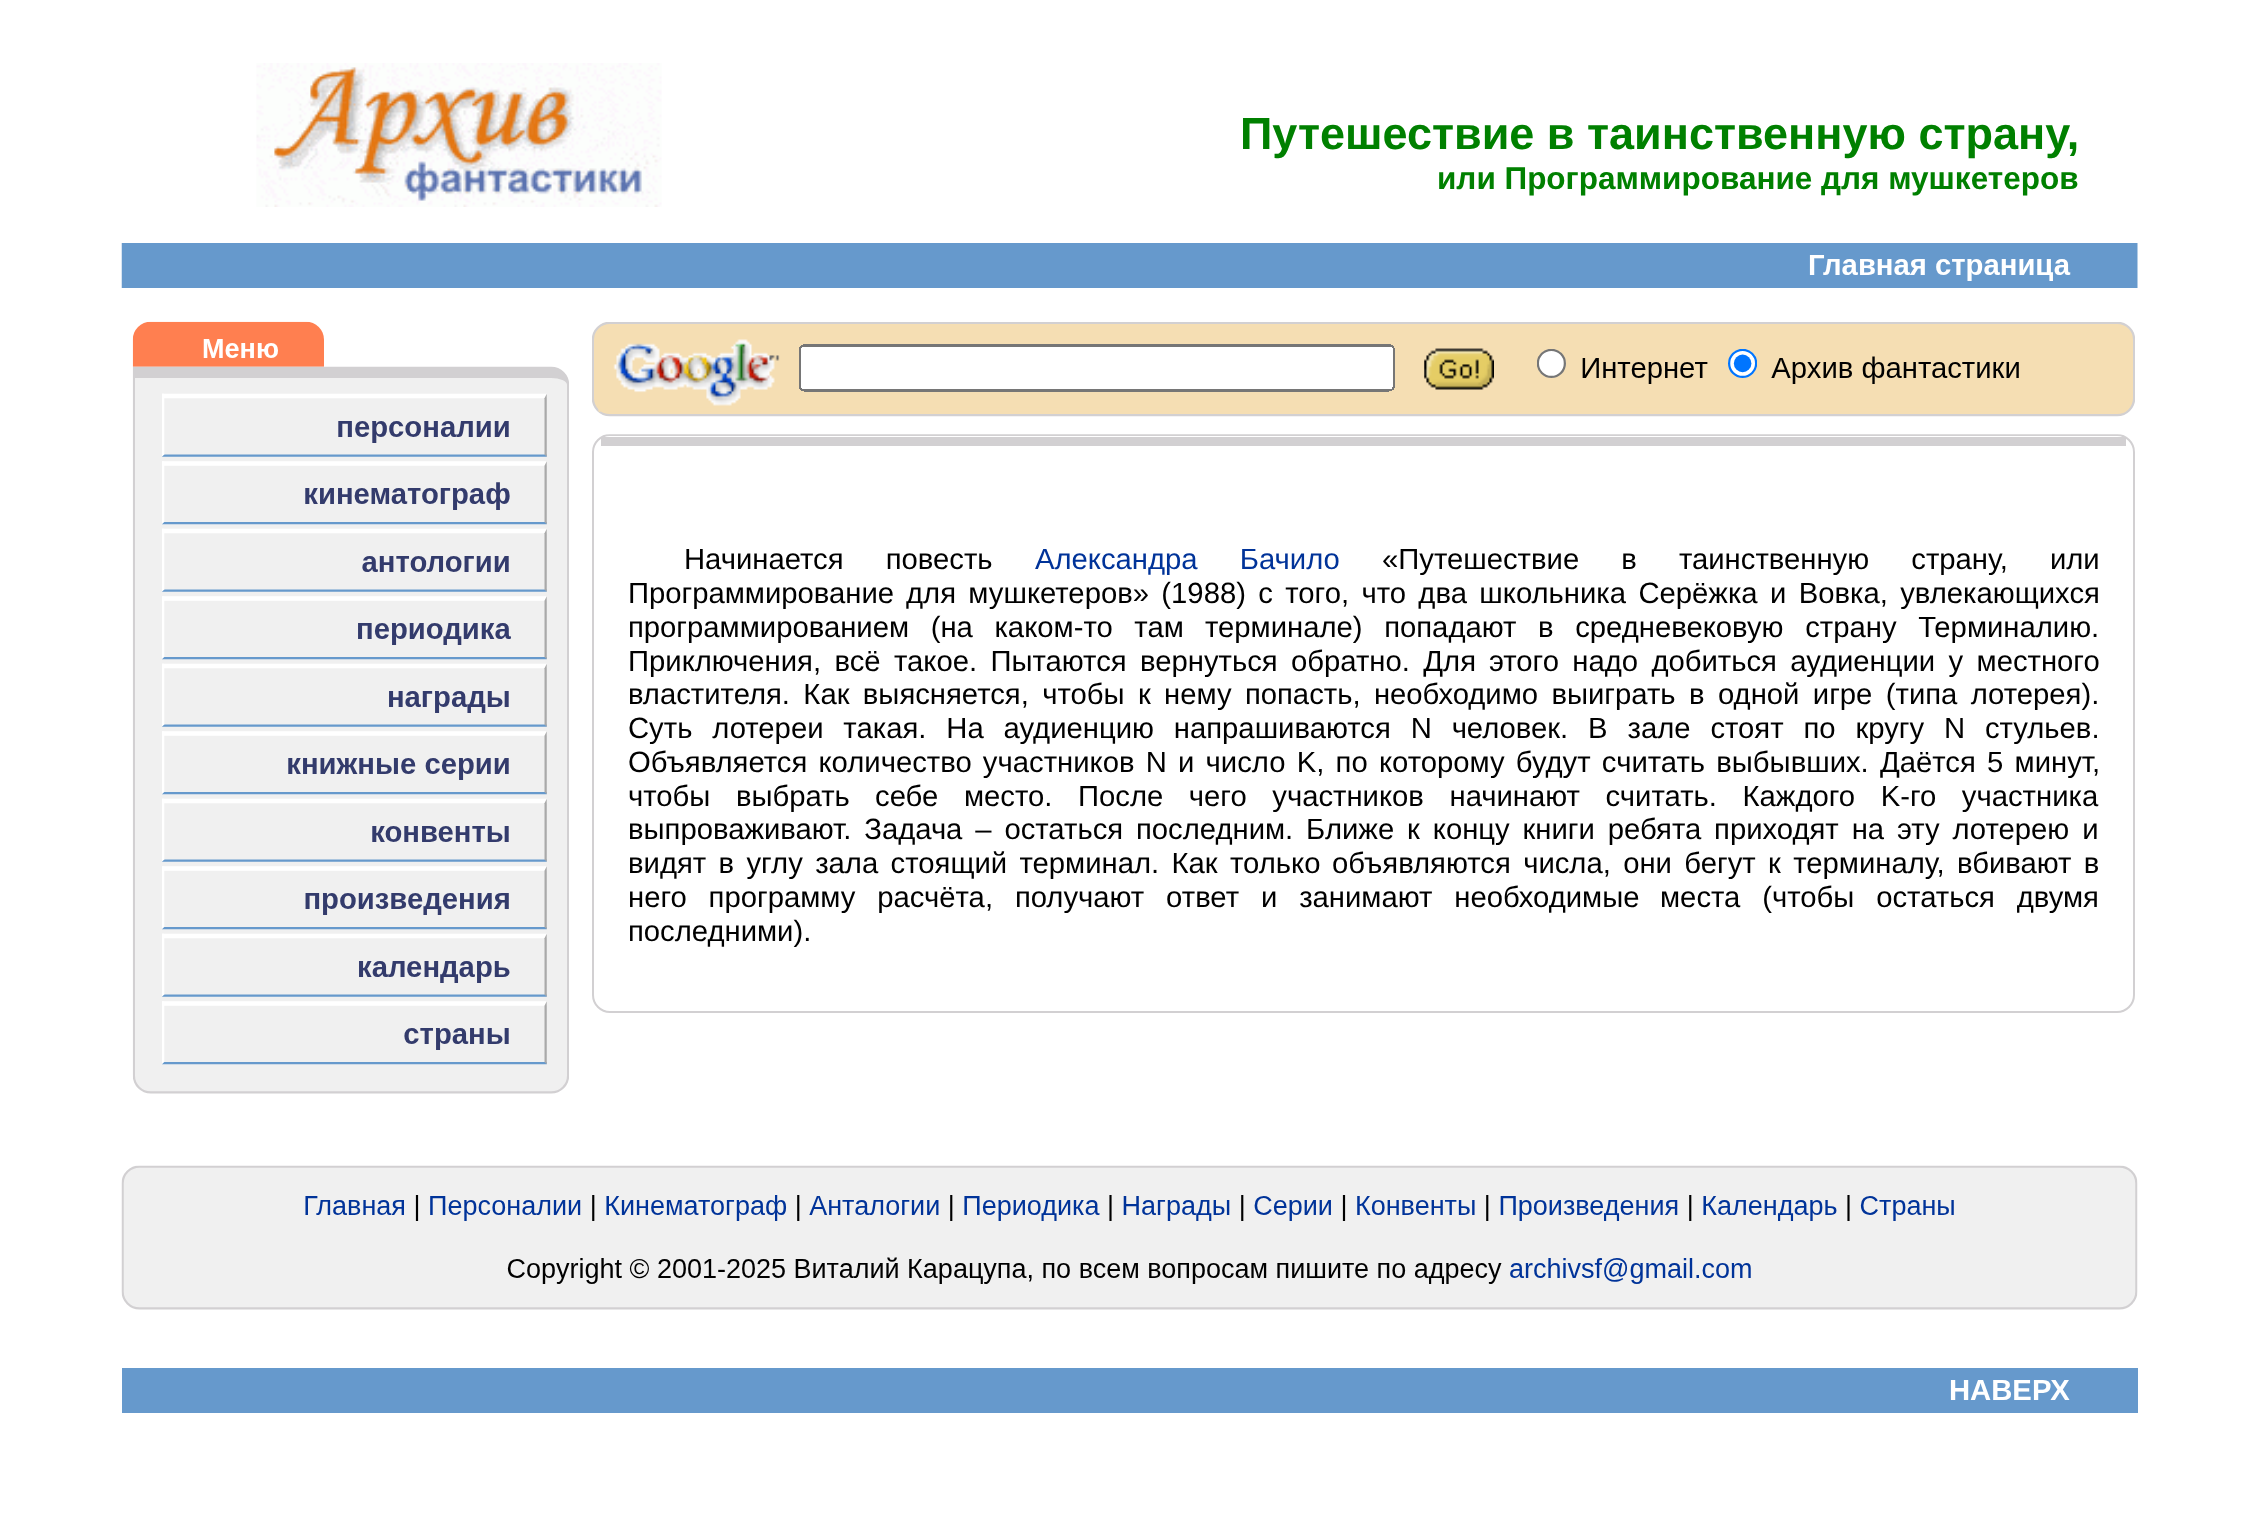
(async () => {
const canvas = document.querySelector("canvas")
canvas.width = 2268
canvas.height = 1528
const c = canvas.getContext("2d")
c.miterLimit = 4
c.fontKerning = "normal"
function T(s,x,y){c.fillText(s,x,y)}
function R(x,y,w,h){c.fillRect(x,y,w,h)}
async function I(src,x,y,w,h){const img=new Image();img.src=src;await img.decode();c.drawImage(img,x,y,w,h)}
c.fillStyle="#fff"
R(0,0,2268,1528)
await I("1.png",256,63,406,144)
c.font="bold 45px Liberation Sans"
c.fillStyle="#008000"
T("Путешествие в таинственную страну,",1240,149)
c.font="bold 31.5px Liberation Sans"
T("или Программирование для мушкетеров",1437,189)
await I("2.png",121,243,2017,45)
await I("3.png",132,321,437,773)
c.beginPath()
c.roundRect(593,435,1541,577,17)
c.strokeStyle="#d2d0d2"
c.lineWidth=2
c.stroke()
await I("4.png",592,322,1543,113)
c.fillStyle="#d2d0d2"
R(601,437,1525,9)
c.wordSpacing="34px"
c.font="29.25px Liberation Sans"
c.fillStyle="#000"
T("Начинается повесть",684,569)
c.fillStyle="#039"
T("Александра Бачило",1035,569)
c.fillStyle="#000"
T("«Путешествие в таинственную страну, или",1382,569)
c.wordSpacing="0px"
T("Программирование",628,603)
c.wordSpacing="4.25px"
T("для мушкетеров» (1988) с того, что два школьника Серёжка и Вовка, увлекающихся",906,603)
c.wordSpacing="13.5px"
T("программированием (на каком-то там",628,637)
T("терминале) попадают в средневековую страну Терминалию.",1205,637)
c.wordSpacing="5.25px"
T("Приключения, всё такое. Пытаются вернуться обратно. Для",628,671)
T("этого надо добиться аудиенции у местного",1489,671)
T("властителя. Как выясняется, чтобы к нему попасть, необходимо выиграть в",628,704)
T("одной игре (типа лотерея).",1718,704)
c.wordSpacing="11.75px"
T("Суть лотереи такая. На аудиенцию напрашиваются N человек. В зале стоят по кругу N стульев.",628,738)
c.wordSpacing="3.1px"
T("Объявляется количество участников N и число K, по которому будут считать выбывших. Даётся 5 минут,",628,772)
c.wordSpacing="17.5px"
T("чтобы выбрать",628,806)
T("себе место. После чего участников начинают считать. Каждого K-го участника",875,806)
c.wordSpacing="4.75px"
T("выпроваживают. Задача – остаться",628,839)
T("последним. Ближе к концу книги ребята приходят на эту лотерею и",1136,839)
c.wordSpacing="4.25px"
T("видят в углу зала стоящий терминал. Как только",628,873)
T("объявляются числа, они бегут к терминалу, вбивают в",1332,873)
c.wordSpacing="13.75px"
T("него программу расчёта, получают ответ и занимают необходимые",628,907)
T("места (чтобы остаться двумя",1660,907)
c.wordSpacing="0px"
T("последними).",628,941)
await I("5.png",121,1165,2017,149)
c.fillStyle="#69c"
R(122,1368,2016,45)
c.font="bold 29.25px Liberation Sans"
c.fillStyle="#fff"
T("НАВЕРХ",1949,1400)
})()
